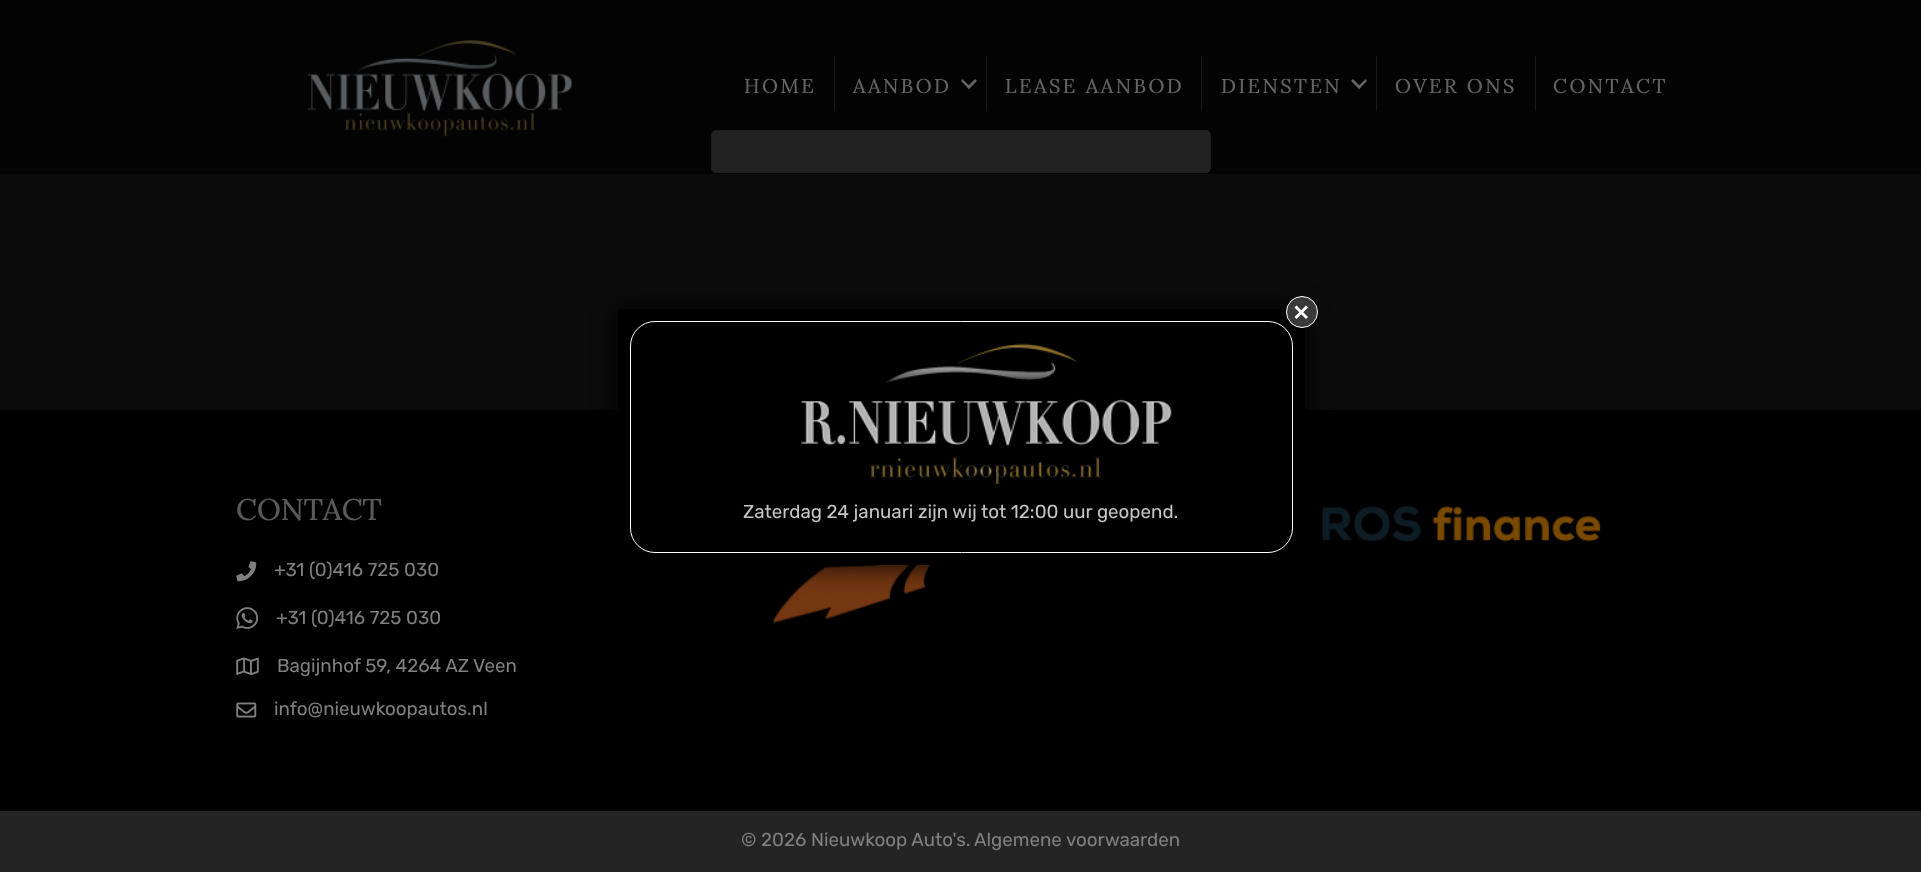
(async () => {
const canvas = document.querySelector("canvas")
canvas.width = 1921
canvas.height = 872
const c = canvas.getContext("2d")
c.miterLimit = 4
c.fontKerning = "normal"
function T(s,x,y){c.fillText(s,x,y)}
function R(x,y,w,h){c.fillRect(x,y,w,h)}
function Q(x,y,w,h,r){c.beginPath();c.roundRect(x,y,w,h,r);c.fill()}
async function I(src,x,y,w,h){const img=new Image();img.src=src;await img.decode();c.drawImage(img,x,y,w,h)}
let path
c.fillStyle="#242424"
R(0,0,1921,872)
c.fillStyle="#0b0b0b"
R(0,0,1921,410)
c.fillStyle="#7e7e7e"
c.beginPath()
c.roundRect(711.5,130.5,499,42,4.5)
c.fill()
c.strokeStyle="#737373"
c.stroke()
c.fillStyle="#000000ba"
R(0,0,1921,174)
await I("1.png",307,39,266,98)
c.letterSpacing="2.5px"
c.font="20px Sumana"
c.fillStyle="#636363"
T("HOME",744,93)
c.fillStyle="#181818"
R(834,56,1,55)
c.fillStyle="#636363"
T("AANBOD",853,93)
path = new Path2D("M975 79l2 2l-8 8l-2-2z")
c.fill(path)
path = new Path2D("M962.5 79l8 8l-1.5 2l-8-8z")
c.fill(path)
c.fillStyle="#181818"
R(986,56,1,55)
c.fillStyle="#636363"
T("LEASE AANBOD",1005,93)
c.fillStyle="#181818"
R(1201,56,1,55)
c.fillStyle="#636363"
T("DIENSTEN",1221,93)
path = new Path2D("M1365.5 79l1.5 2l-8 8l-1.5-2z")
c.fill(path)
path = new Path2D("M1353 79l8 8l-2 2l-8-8z")
c.fill(path)
c.fillStyle="#181818"
R(1376,56,1,55)
c.fillStyle="#636363"
T("OVER ONS",1395,93)
c.fillStyle="#181818"
R(1535,56,1,55)
c.fillStyle="#636363"
T("CONTACT",1553,93)
c.fillStyle="#000"
R(0,410,1921,401)
c.letterSpacing="0px"
c.font="30px Sumana"
c.fillStyle="#5a5a5a"
T("CONTACT",236,520)
await I("2.png",236,561,21,21)
c.font="18.75px Rubik"
c.fillStyle="#808080"
T("+31 (0)416 725 030",274,576)
await I("3.png",236,607,23,22)
T("+31 (0)416 725 030",276,624)
await I("4.png",236,657,23,18)
T("Bagijnhof 59, 4264 AZ Veen",277,672)
await I("5.png",236,702,21,16)
T("info@nieuwkoopautos.nl",274,715)
await I("6.png",1322,506,279,36)
await I("7.png",773,565,159,59)
T("© 2026 Nieuwkoop Auto's.",741,846)
T("Algemene voorwaarden",974,846)
c.fillStyle="#000"
c.filter="blur(12.5px)"
c.beginPath()
c.rect(618,309,687,256)
c.fill()
c.filter="none"
Q(618,309,687,256,2.5)
c.beginPath()
c.roundRect(630.5,321.5,662,231,24.5)
c.strokeStyle="#fff"
c.stroke()
c.fillStyle="#3a3a3a"
c.beginPath()
c.arc(1302,312,15.5,0,7)
c.fill()
c.stroke()
c.fillStyle="#fff"
path = new Path2D("M1306 319l-11.5-11.5l2-2l11.5 11.5z")
c.fill(path)
path = new Path2D("M1308 307.5l-11.5 11.5l-2-2l11.5-11.5z")
c.fill(path)
await I("8.png",801,343,371,142)
c.fillStyle="#c6c6c6"
T("Zaterdag 24 januari zijn wij tot 12:00 uur geopend.",743,518)
})()
